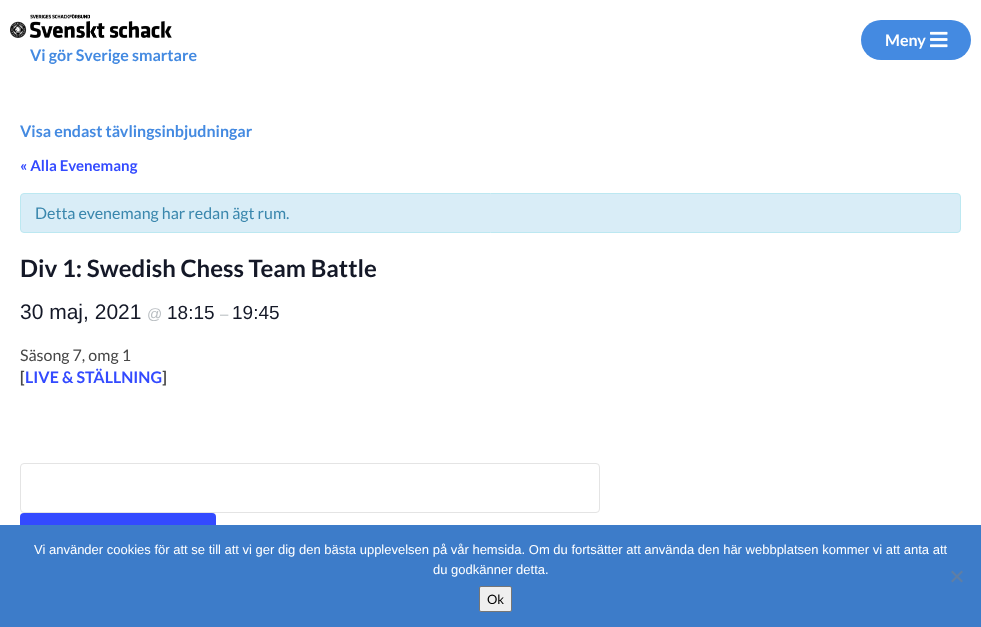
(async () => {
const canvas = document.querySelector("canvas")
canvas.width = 981
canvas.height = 627
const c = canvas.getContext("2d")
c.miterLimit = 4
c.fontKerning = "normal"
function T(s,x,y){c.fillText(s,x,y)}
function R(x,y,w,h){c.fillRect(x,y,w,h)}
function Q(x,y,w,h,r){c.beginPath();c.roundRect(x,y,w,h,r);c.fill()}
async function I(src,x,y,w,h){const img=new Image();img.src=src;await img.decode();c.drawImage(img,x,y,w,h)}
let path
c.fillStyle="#fff"
R(0,0,981,627)
c.fillStyle="#448ae1"
Q(861,20,110,40,20)
c.font="bold 16px Lato"
c.fillStyle="#fff"
T("Meny",885,46)
await I("1.png",930,31,18,17)
await I("2.png",10,14,162,24)
c.fillStyle="#448ae1"
T("Vi gör Sverige smartare",30,61)
T("Visa endast tävlingsinbjudningar",20,137)
c.font="bold 15px Lato"
c.fillStyle="#334aff"
T("« Alla Evenemang",20,171)
c.fillStyle="#d9edf7"
c.beginPath()
c.roundRect(20.5,193.5,940,39,3.5)
c.fill()
c.strokeStyle="#bce8f1"
c.stroke()
c.font="16px Lato"
c.fillStyle="#3a87ad"
T("Detta evenemang har redan ägt rum.",35,219)
c.font="bold 24px Lato"
c.fillStyle="#141827"
T("Div 1: Swedish Chess Team Battle",20,277)
c.font="21px Liberation Sans"
T("30 maj, 2021",20,319)
c.font="15px Liberation Sans"
c.fillStyle="#b9bec2"
T("@",147,319)
c.font="19px Liberation Sans"
c.fillStyle="#141827"
T("18:15",167,319)
c.font="15px Liberation Sans"
c.fillStyle="#b9bec2"
T("–",220,319)
c.font="19px Liberation Sans"
c.fillStyle="#141827"
T("19:45",232,319)
c.font="16px Lato"
c.fillStyle="#464646"
T("Säsong 7, omg 1",20,361)
c.font="bold 16px Lato"
T("[",20,383)
c.fillStyle="#334aff"
T("LIVE & STÄLLNING",25,383)
c.fillStyle="#464646"
T("]",162,383)
c.beginPath()
c.roundRect(20.5,463.5,579,49,3.5)
c.strokeStyle="#e4e4e4"
c.stroke()
c.fillStyle="#334aff"
Q(20,513,196,54,4)
c.fillStyle="#3d7cc9"
R(0,525,981,102)
c.font="13px Liberation Sans"
c.fillStyle="#fff"
T("Vi använder cookies för att se till att vi ger dig den bästa upplevelsen på vår hemsida. Om du fortsätter att använda den här webbplatsen kommer vi att anta att",34,554)
T("du godkänner detta.",433,574)
c.fillStyle="#5f7ea5"
path = new Path2D("M961.5 570.5l1.5 1.5l-10.5 10.5l-1.5-1.5z")
c.fill(path)
path = new Path2D("M951 572l1.5-1.5l10.5 10.5l-1.5 1.5z")
c.fill(path)
c.fillStyle="#efefef"
c.beginPath()
c.roundRect(479.5,586.5,32,25,1.5)
c.fill()
c.strokeStyle="#767676"
c.stroke()
c.font="13px Lato"
c.fillStyle="#000"
T("Ok",487,604)
})()
